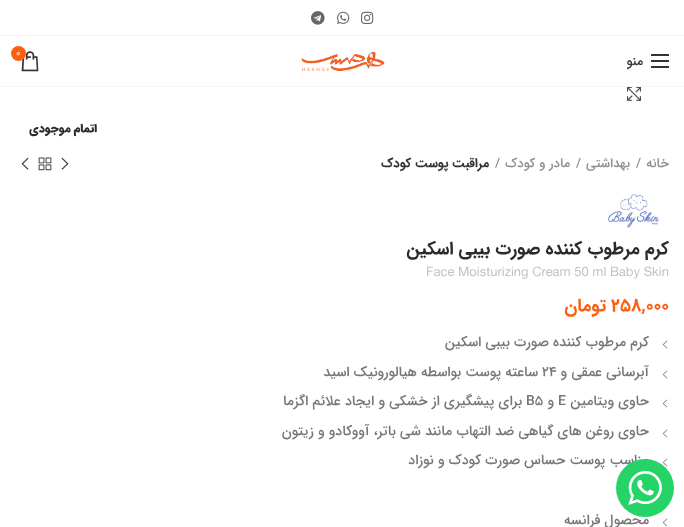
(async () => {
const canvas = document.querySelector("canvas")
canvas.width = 684
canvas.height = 527
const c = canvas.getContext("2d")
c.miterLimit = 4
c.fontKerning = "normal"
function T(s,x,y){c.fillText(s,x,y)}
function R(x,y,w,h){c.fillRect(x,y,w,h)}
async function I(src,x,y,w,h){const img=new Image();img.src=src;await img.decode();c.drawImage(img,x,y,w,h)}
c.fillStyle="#fff"
R(0,0,684,527)
c.fillStyle="#f5f5f7"
R(0,35,684,1)
await I("1.png",361,11,13,13)
await I("2.png",337,11,13,13)
await I("3.png",311,11,14,14)
R(0,86,684,1)
await I("4.png",301,51,84,21)
await I("5.png",21,51,18,21)
c.fillStyle="#fd5e0f"
c.beginPath()
c.arc(18.5,53.5,7.5,0,7)
c.fill()
c.font="10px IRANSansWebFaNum"
c.fillStyle="#fff"
T("0",16,56)
c.fillStyle="#333"
R(651,60,18,2)
R(651,54,18,2)
R(651,66,18,2)
c.direction="rtl"
c.font="500 13px IRANSansWebFaNum"
T("منو",643,65)
await I("6.png",627,87,14,14)
c.letterSpacing="0.4px"
c.wordSpacing="-1px"
c.font="900 12px IRANSansWebFaNum"
c.fillStyle="#2d2a2a"
T("اتمام موجودی",97,132)
c.letterSpacing="0px"
c.wordSpacing="0px"
c.font="500 13px IRANSansWebFaNum"
c.fillStyle="#8e8e8e"
T("خانه",669,167)
c.direction="ltr"
T("/",636,167)
c.direction="rtl"
T("بهداشتی",630,167)
c.direction="ltr"
T("/",576,167)
c.direction="rtl"
T("مادر و کودک",570,167)
c.direction="ltr"
T("/",495,167)
c.direction="rtl"
c.font="bold 13px IRANSansWebFaNum"
c.fillStyle="#333"
T("مراقبت پوست کودک",489,167)
await I("7.png",61,157,8,13)
await I("8.png",38,157,14,14)
await I("9.png",21,157,8,13)
await I("10.png",608,194,52,34)
c.font="bold 18px IRANSansWebFaNum"
c.fillStyle="#2d2a2a"
T("کرم مرطوب کننده صورت بیبی اسکین",669,254)
c.direction="ltr"
c.font="13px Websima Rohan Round"
c.fillStyle="#c0c2c5"
T("Face Moisturizing Cream 50 ml Baby Skin",426,276)
c.font="bold 18px IRANSansWebFaNum"
c.fillStyle="#fd5e0f"
T("258,000",611,311)
c.direction="rtl"
T("تومان",606,311)
await I("11.png",662,340,6,9)
c.font="500 14px IRANSansWebFaNum"
c.fillStyle="#777"
T("کرم مرطوب کننده صورت بیبی اسکین",649,346)
await I("11.png",662,370,6,9)
T("آبرسانی عمقی و",649,376)
c.direction="ltr"
T("۲۴",542,376)
c.direction="rtl"
T("ساعته پوست بواسطه هیالورونیک اسید",538,376)
await I("11.png",662,399,6,9)
T("حاوی ویتامین",649,405)
c.direction="ltr"
T("E",558,405)
c.direction="rtl"
T("و",554,405)
c.direction="ltr"
T("B5",526,405)
c.direction="rtl"
T("برای پیشگیری از خشکی و ایجاد علائم اگزما",522,405)
await I("11.png",662,429,6,9)
T("حاوی روغن های گیاهی ضد التهاب مانند شی باتر، آووکادو و زیتون",649,435)
await I("11.png",662,458,6,9)
T("مناسب پوست حساس صورت کودک و نوزاد",649,464)
await I("11.png",662,518,6,9)
T("محصول فرانسه",649,524)
c.fillStyle="#25d366"
c.beginPath()
c.arc(645,488,29,0,7)
c.fill()
await I("12.png",628,471,34,34)
})()
